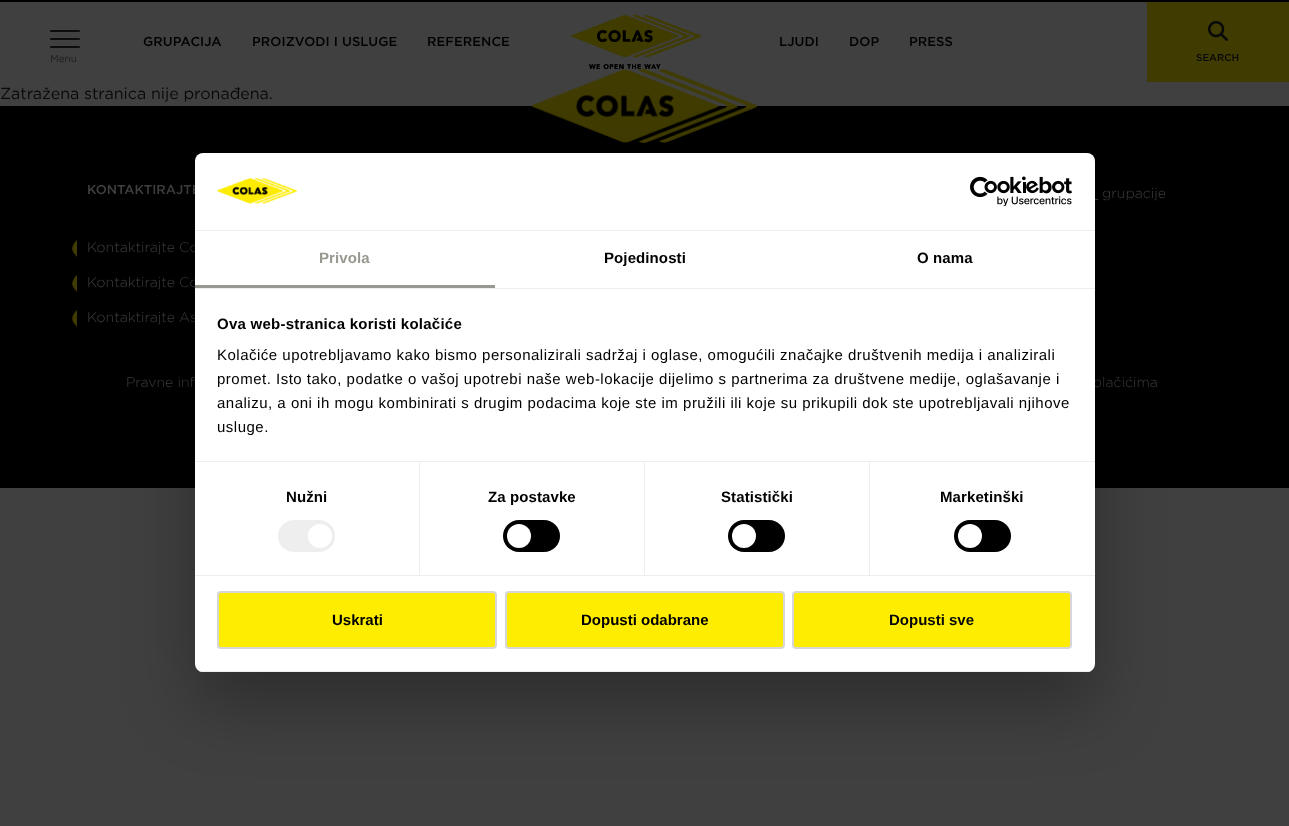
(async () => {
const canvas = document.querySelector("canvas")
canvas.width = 1289
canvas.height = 826
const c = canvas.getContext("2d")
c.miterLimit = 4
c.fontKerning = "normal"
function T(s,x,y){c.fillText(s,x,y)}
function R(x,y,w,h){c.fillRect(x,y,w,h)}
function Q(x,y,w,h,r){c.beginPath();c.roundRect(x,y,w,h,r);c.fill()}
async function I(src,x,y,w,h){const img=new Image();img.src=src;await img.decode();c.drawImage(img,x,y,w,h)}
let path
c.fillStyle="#404040"
R(0,0,1289,826)
c.fillStyle="#000"
R(0,0,1289,2)
c.letterSpacing="0.1px"
c.font="500 13px Gotham"
T("GRUPACIJA",143,46)
T("PROIZVODI I USLUGE",252,46)
T("REFERENCE",427,46)
c.fillStyle="#0d0d0d"
Q(50,30,30,2,1)
Q(50,38,30,2,1)
Q(50,46,30,2,1)
c.letterSpacing="0px"
c.font="10px Gotham"
c.fillStyle="#1d1c1c"
T("Menu",50,62)
await I("1.png",571,15,130,54)
c.letterSpacing="0.1px"
c.font="500 13px Gotham"
c.fillStyle="#000"
T("LJUDI",779,46)
T("DOP",849,46)
T("PRESS",909,46)
c.fillStyle="#403b00"
R(1147,2,142,80)
await I("2.png",1208,21,20,20)
c.letterSpacing="0px"
c.font="500 10px Gotham"
c.fillStyle="#08090a"
T("SEARCH",1196,61)
c.font="16px Gotham"
T("Zatražena stranica nije pronađena.",0,99)
c.fillStyle="#000"
R(0,106,1289,382)
await I("3.png",532,69,225,74)
c.font="500 13px Gotham"
c.fillStyle="#404040"
T("KONTAKTIRAJTE",87,194)
c.fillStyle="#403b00"
path = new Path2D("M73.5 252.5c-3-4.5 0-9 3.5-12.5v17zm0 35c-3-4.5 0-9 3.5-12.5v17z")
c.fill(path)
c.font="300 14px Gotham"
c.fillStyle="#404040"
T("Kontaktirajte Co",87,252)
T("Kontaktirajte Co",87,287)
c.fillStyle="#403b00"
path = new Path2D("M73.5 322.5c-3-4.5 0-9 3.5-12.5v17z")
c.fill(path)
c.fillStyle="#404040"
T("Kontaktirajte As",87,322)
R(1095,199,3,1)
T("grupacije",1102,198)
T("Pravne inf",126,387)
T("olačićima",1093,387)
c.fillStyle="#0000004d"
c.filter="blur(34px)"
c.beginPath()
c.roundRect(195,185,900,519,8)
c.fill()
c.filter="none"
c.fillStyle="#fff"
Q(195,153,900,519,8)
c.fillStyle="#eee"
R(195,230,900,1)
await I("4.png",217,177,80,27)
await I("5.png",970,176,102,30)
R(195,288,900,1)
c.fillStyle="#989890"
R(195,285,300,3)
c.letterSpacing="0.1px"
c.font="bold 15px Liberation Sans"
T("Privola",319,263)
c.fillStyle="#000"
T("Pojedinosti",604,263)
T("O nama",917,263)
c.fillStyle="#eee"
R(195,461,900,1)
c.letterSpacing="0.25px"
c.fillStyle="#000"
T("Ova web-stranica koristi kolačiće",217,329)
c.letterSpacing="0.5px"
c.font="15px Liberation Sans"
T("Kolačiće upotrebljavamo kako bismo personalizirali sadržaj i oglase, omogućili značajke društvenih medija i analizirali",217,360)
T("promet. Isto tako, podatke o vašoj upotrebi naše web-lokacije dijelimo s partnerima za društvene medije, oglašavanje i",217,384)
T("analizu, a oni ih mogu kombinirati s drugim podacima koje ste im pružili ili koje su prikupili dok ste upotrebljavali njihove",217,408)
T("usluge.",217,432)
c.fillStyle="#eee"
R(195,575,900,1)
R(419,462,1,113)
c.letterSpacing="0.1px"
c.font="bold 15px Liberation Sans"
c.fillStyle="#000"
T("Nužni",286,502)
c.fillStyle="#eee"
Q(278,520,57,32,16)
c.fillStyle="#fff"
c.beginPath()
c.arc(320,536,12,0,7)
c.fill()
c.fillStyle="#eee"
R(644,462,1,113)
c.fillStyle="#000"
T("Za postavke",488,502)
Q(503,520,57,32,16)
c.fillStyle="#fff"
c.beginPath()
c.arc(519,536,12,0,7)
c.fill()
c.fillStyle="#eee"
R(869,462,1,113)
c.fillStyle="#000"
T("Statistički",721,502)
Q(728,520,57,32,16)
c.fillStyle="#fff"
c.beginPath()
c.arc(744,536,12,0,7)
c.fill()
c.fillStyle="#000"
T("Marketinški",940,502)
Q(954,520,57,32,16)
c.fillStyle="#fff"
c.beginPath()
c.arc(970,536,12,0,7)
c.fill()
c.save()
c.beginPath()
c.roundRect(195,153,900,519,8)
c.clip()
c.fillStyle="#eee"
R(195,671,900,1)
c.restore()
c.fillStyle="#ffed00"
c.beginPath()
c.roundRect(218,592,278,56,3)
c.fill()
c.strokeStyle="#d6d6d6"
c.lineWidth=2
c.stroke()
c.letterSpacing="0px"
c.fillStyle="#000"
T("Uskrati",332,625)
c.fillStyle="#ffed00"
c.beginPath()
c.roundRect(506,592,278,56,3)
c.fill()
c.stroke()
c.fillStyle="#000"
T("Dopusti odabrane",581,625)
c.fillStyle="#ffed00"
c.beginPath()
c.roundRect(793,592,278,56,3)
c.fill()
c.stroke()
c.fillStyle="#08090a"
T("Dopusti sve",889,625)
})()
